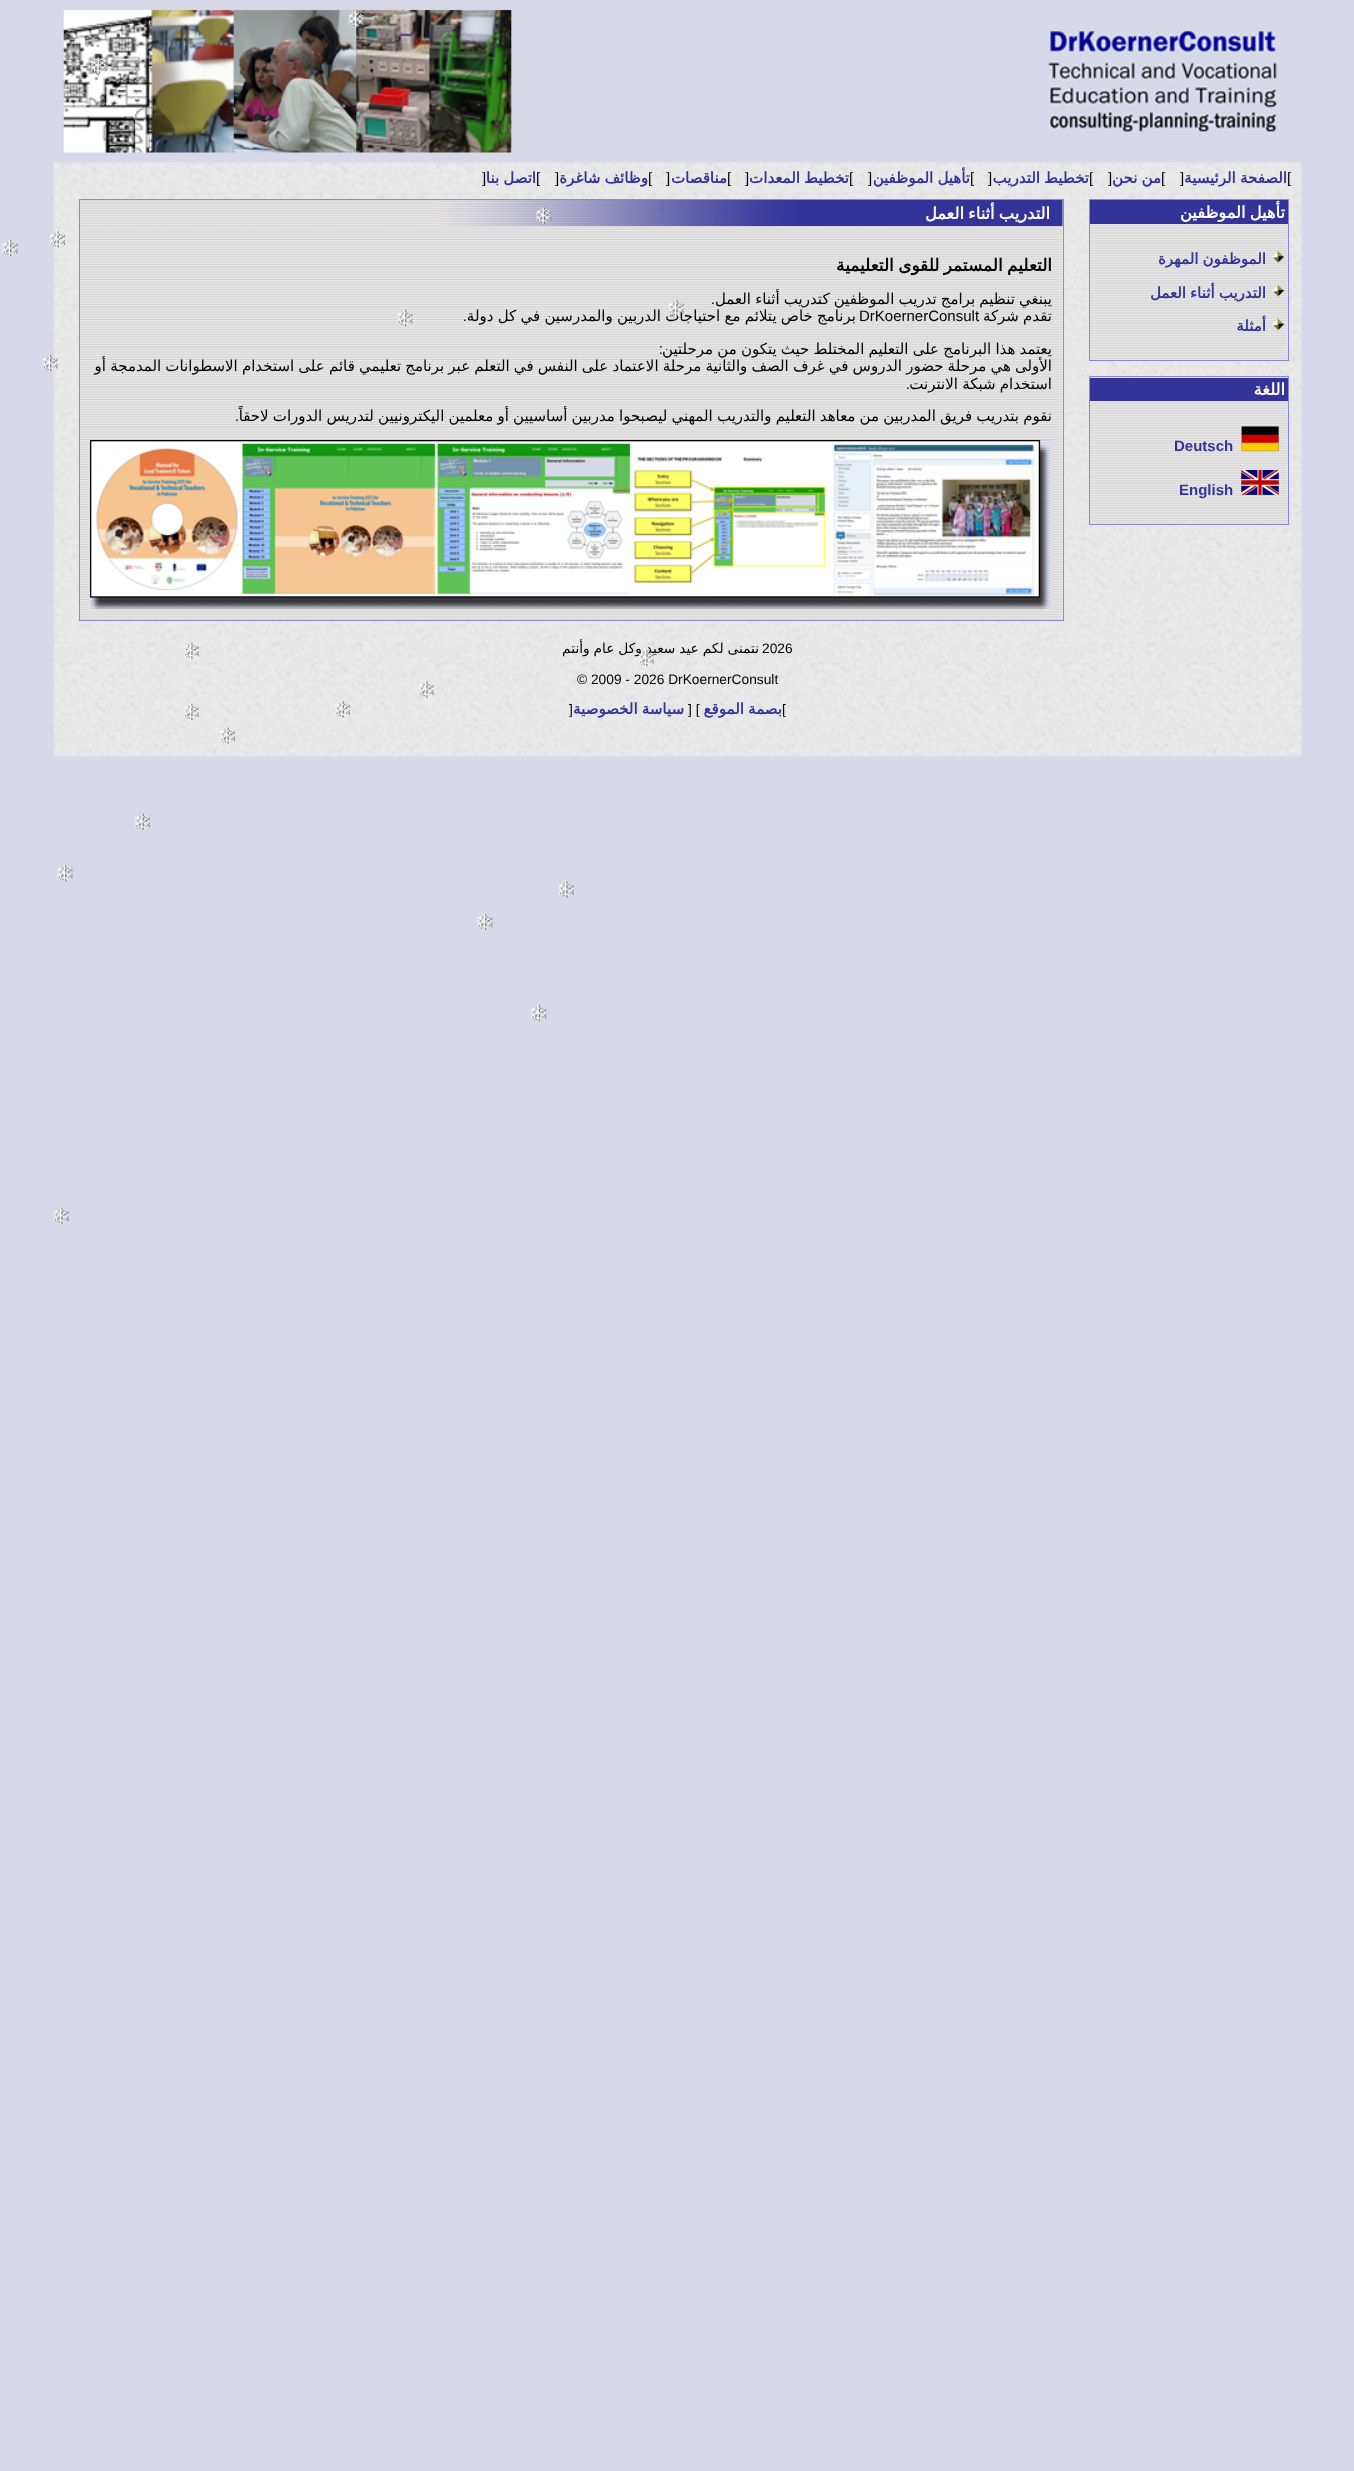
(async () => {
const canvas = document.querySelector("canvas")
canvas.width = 1354
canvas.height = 2471
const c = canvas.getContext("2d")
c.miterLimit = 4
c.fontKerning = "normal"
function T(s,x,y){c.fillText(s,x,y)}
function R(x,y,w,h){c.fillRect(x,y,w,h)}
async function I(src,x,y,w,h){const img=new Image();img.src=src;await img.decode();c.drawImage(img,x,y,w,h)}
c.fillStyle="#d7d9e8"
R(0,0,1354,2471)
await I("3.png",63,9,1214,144)
await I("1.png",348,11,16,17)
await I("2.png",91,57,16,17)
await I("4.png",53,162,1249,595)
c.font="15px Liberation Sans"
c.fillStyle="#000"
T("[",1287,183)
c.wordSpacing="-0.6px"
c.direction="rtl"
c.font="bold 15px DejaVu Sans"
c.fillStyle="#339"
T("الصفحة الرئيسية",1287,183)
c.wordSpacing="0px"
c.direction="ltr"
c.font="15px Liberation Sans"
c.fillStyle="#000"
T("]",1180,183)
T("[",1161,183)
c.wordSpacing="-0.6px"
c.direction="rtl"
c.font="bold 15px DejaVu Sans"
c.fillStyle="#339"
T("من نحن",1161,183)
c.wordSpacing="0px"
c.direction="ltr"
c.font="15px Liberation Sans"
c.fillStyle="#000"
T("]",1108,183)
T("[",1089,183)
c.wordSpacing="-0.6px"
c.direction="rtl"
c.font="bold 15px DejaVu Sans"
c.fillStyle="#339"
T("تخطيط التدريب",1089,183)
c.wordSpacing="0px"
c.direction="ltr"
c.font="15px Liberation Sans"
c.fillStyle="#000"
T("]",988,183)
T("[",970,183)
c.wordSpacing="-0.6px"
c.direction="rtl"
c.font="bold 15px DejaVu Sans"
c.fillStyle="#339"
T("تأهيل الموظفين",970,183)
c.wordSpacing="0px"
c.direction="ltr"
c.font="15px Liberation Sans"
c.fillStyle="#000"
T("]",868,183)
T("[",849,183)
c.wordSpacing="-0.6px"
c.direction="rtl"
c.font="bold 15px DejaVu Sans"
c.fillStyle="#339"
T("تخطيط المعدات",849,183)
c.wordSpacing="0px"
c.direction="ltr"
c.font="15px Liberation Sans"
c.fillStyle="#000"
T("]",745,183)
T("[",727,183)
c.direction="rtl"
c.font="bold 15px DejaVu Sans"
c.fillStyle="#339"
T("مناقصات",727,183)
c.direction="ltr"
c.font="15px Liberation Sans"
c.fillStyle="#000"
T("]",666,183)
T("[",648,183)
c.wordSpacing="-0.6px"
c.direction="rtl"
c.font="bold 15px DejaVu Sans"
c.fillStyle="#339"
T("وظائف شاغرة",648,183)
c.wordSpacing="0px"
c.direction="ltr"
c.font="15px Liberation Sans"
c.fillStyle="#000"
T("]",555,183)
T("[",536,183)
c.wordSpacing="-0.6px"
c.direction="rtl"
c.font="bold 15px DejaVu Sans"
c.fillStyle="#339"
T("اتصل بنا",536,183)
c.wordSpacing="0px"
c.direction="ltr"
c.font="15px Liberation Sans"
c.fillStyle="#000"
T("]",482,183)
c.strokeStyle="#8787e0"
c.strokeRect(1089.5,199.5,199,161)
await I("5.png",1090,224,198,136)
c.fillStyle="#339"
R(1090,200,198,24)
c.wordSpacing="-1px"
c.direction="rtl"
c.font="bold 16.25px DejaVu Sans"
c.fillStyle="#fff"
T("تأهيل الموظفين",1285,218)
await I("6.png",1272,251,12,12)
c.wordSpacing="-0.6px"
c.font="bold 15px DejaVu Sans"
c.fillStyle="#339"
T("الموظفون المهرة",1266,264)
await I("7.png",1272,284,12,13)
T("التدريب أثناء العمل",1266,298)
await I("8.png",1272,318,12,13)
c.wordSpacing="0px"
T("أمثلة",1266,331)
c.strokeRect(1089.5,376.5,199,148)
await I("9.png",1090,377,198,147)
R(1090,378,198,23)
c.font="bold 16.25px DejaVu Sans"
c.fillStyle="#fff"
T("اللغة",1285,395)
await I("10.png",1241,426,38,26)
c.direction="ltr"
c.font="bold 15px Liberation Sans"
c.fillStyle="#339"
T("Deutsch",1174,451)
await I("11.png",1241,470,38,25)
T("English",1179,495)
c.strokeRect(79.5,199.5,984,421)
await I("12.png",80,200,983,26)
await I("13.png",437,200,626,27)
c.wordSpacing="-1px"
c.direction="rtl"
c.font="bold 16.25px DejaVu Sans"
c.fillStyle="#fff"
T("التدريب أثناء العمل",1050,219)
await I("14.png",80,226,983,394)
c.font="bold 16.9px DejaVu Sans"
c.fillStyle="#000"
T("التعليم المستمر للقوى التعليمية",1052,271)
c.wordSpacing="-0.6px"
c.font="15px DejaVu Sans"
T("يبنغي تنظيم برامج تدريب الموظفين كتدريب أثناء العمل",1052,304)
c.wordSpacing="0px"
c.font="15px Liberation Sans"
T(".",715,304)
c.wordSpacing="-0.6px"
c.font="15px DejaVu Sans"
T("تقدم شركة",1052,321)
c.wordSpacing="0px"
c.direction="ltr"
c.font="15px Liberation Sans"
T("DrKoernerConsult",859,321)
c.wordSpacing="-0.5px"
c.direction="rtl"
c.font="15px DejaVu Sans"
T("برنامج خاص يتلائم مع احتياجات الدربين والمدرسين في كل دولة",856,321)
c.wordSpacing="0px"
c.font="15px Liberation Sans"
T(".",467,321)
c.wordSpacing="-0.6px"
c.font="15px DejaVu Sans"
T("يعتمد هذا البرنامج على التعليم المختلط حيث يتكون من مرحلتين",1052,354)
c.wordSpacing="0px"
c.font="15px Liberation Sans"
T(":",663,354)
c.wordSpacing="-0.6px"
c.font="15px DejaVu Sans"
T("الأولى هي مرحلة حضور الدروس في غرف الصف والثانية مرحلة الاعتماد على النفس في التعلم عبر برنامج تعليمي قائم على استخدام الاسطوانات المدمجة أو",1052,371)
T("استخدام شبكة الانترنت",1052,389)
c.wordSpacing="0px"
c.font="15px Liberation Sans"
T(".",910,389)
c.wordSpacing="-0.6px"
c.font="15px DejaVu Sans"
T("نقوم بتدريب فريق المدربين من معاهد التعليم والتدريب المهني ليصبحوا مدربين أساسيين أو معلمين اليكترونيين لتدريس الدورات لاحقاً",1052,421)
c.wordSpacing="0px"
c.font="15px Liberation Sans"
T(".",239,421)
await I("15.png",90,440,963,170)
c.direction="ltr"
c.font="13.75px Liberation Sans"
T("2026",762,653)
c.wordSpacing="-0.5px"
c.direction="rtl"
c.font="13.75px DejaVu Sans"
T("نتمنى لكم عيد سعيد وكل عام وأنتم",759,653)
c.wordSpacing="0px"
c.direction="ltr"
c.font="13.75px Liberation Sans"
T("© 2009 - 2026 DrKoernerConsult",577,684)
T("[",782,714)
c.wordSpacing="-0.6px"
c.direction="rtl"
c.font="bold 15px DejaVu Sans"
c.fillStyle="#339"
T("بصمة الموقع",782,714)
c.wordSpacing="0px"
c.direction="ltr"
c.font="13.75px Liberation Sans"
c.fillStyle="#000"
T("] [",688,714)
c.wordSpacing="-0.6px"
c.direction="rtl"
c.font="bold 15px DejaVu Sans"
c.fillStyle="#339"
T("سياسة الخصوصية",684,714)
c.wordSpacing="0px"
c.direction="ltr"
c.font="13.75px Liberation Sans"
c.fillStyle="#000"
T("]",569,714)
await I("16.png",536,207,16,17)
await I("17.png",50,231,15,17)
await I("18.png",2,240,16,17)
await I("19.png",668,300,16,17)
await I("20.png",397,310,16,17)
await I("21.png",42,355,16,17)
await I("22.png",638,650,16,17)
await I("23.png",183,642,16,17)
await I("24.png",418,681,16,17)
await I("25.png",335,701,15,17)
await I("26.png",183,703,16,17)
await I("27.png",220,727,15,17)
await I("28.png",135,813,15,17)
await I("29.png",57,865,16,17)
await I("30.png",558,881,16,17)
await I("31.png",477,913,16,17)
await I("32.png",531,1005,16,17)
await I("33.png",53,1207,16,17)
})()
